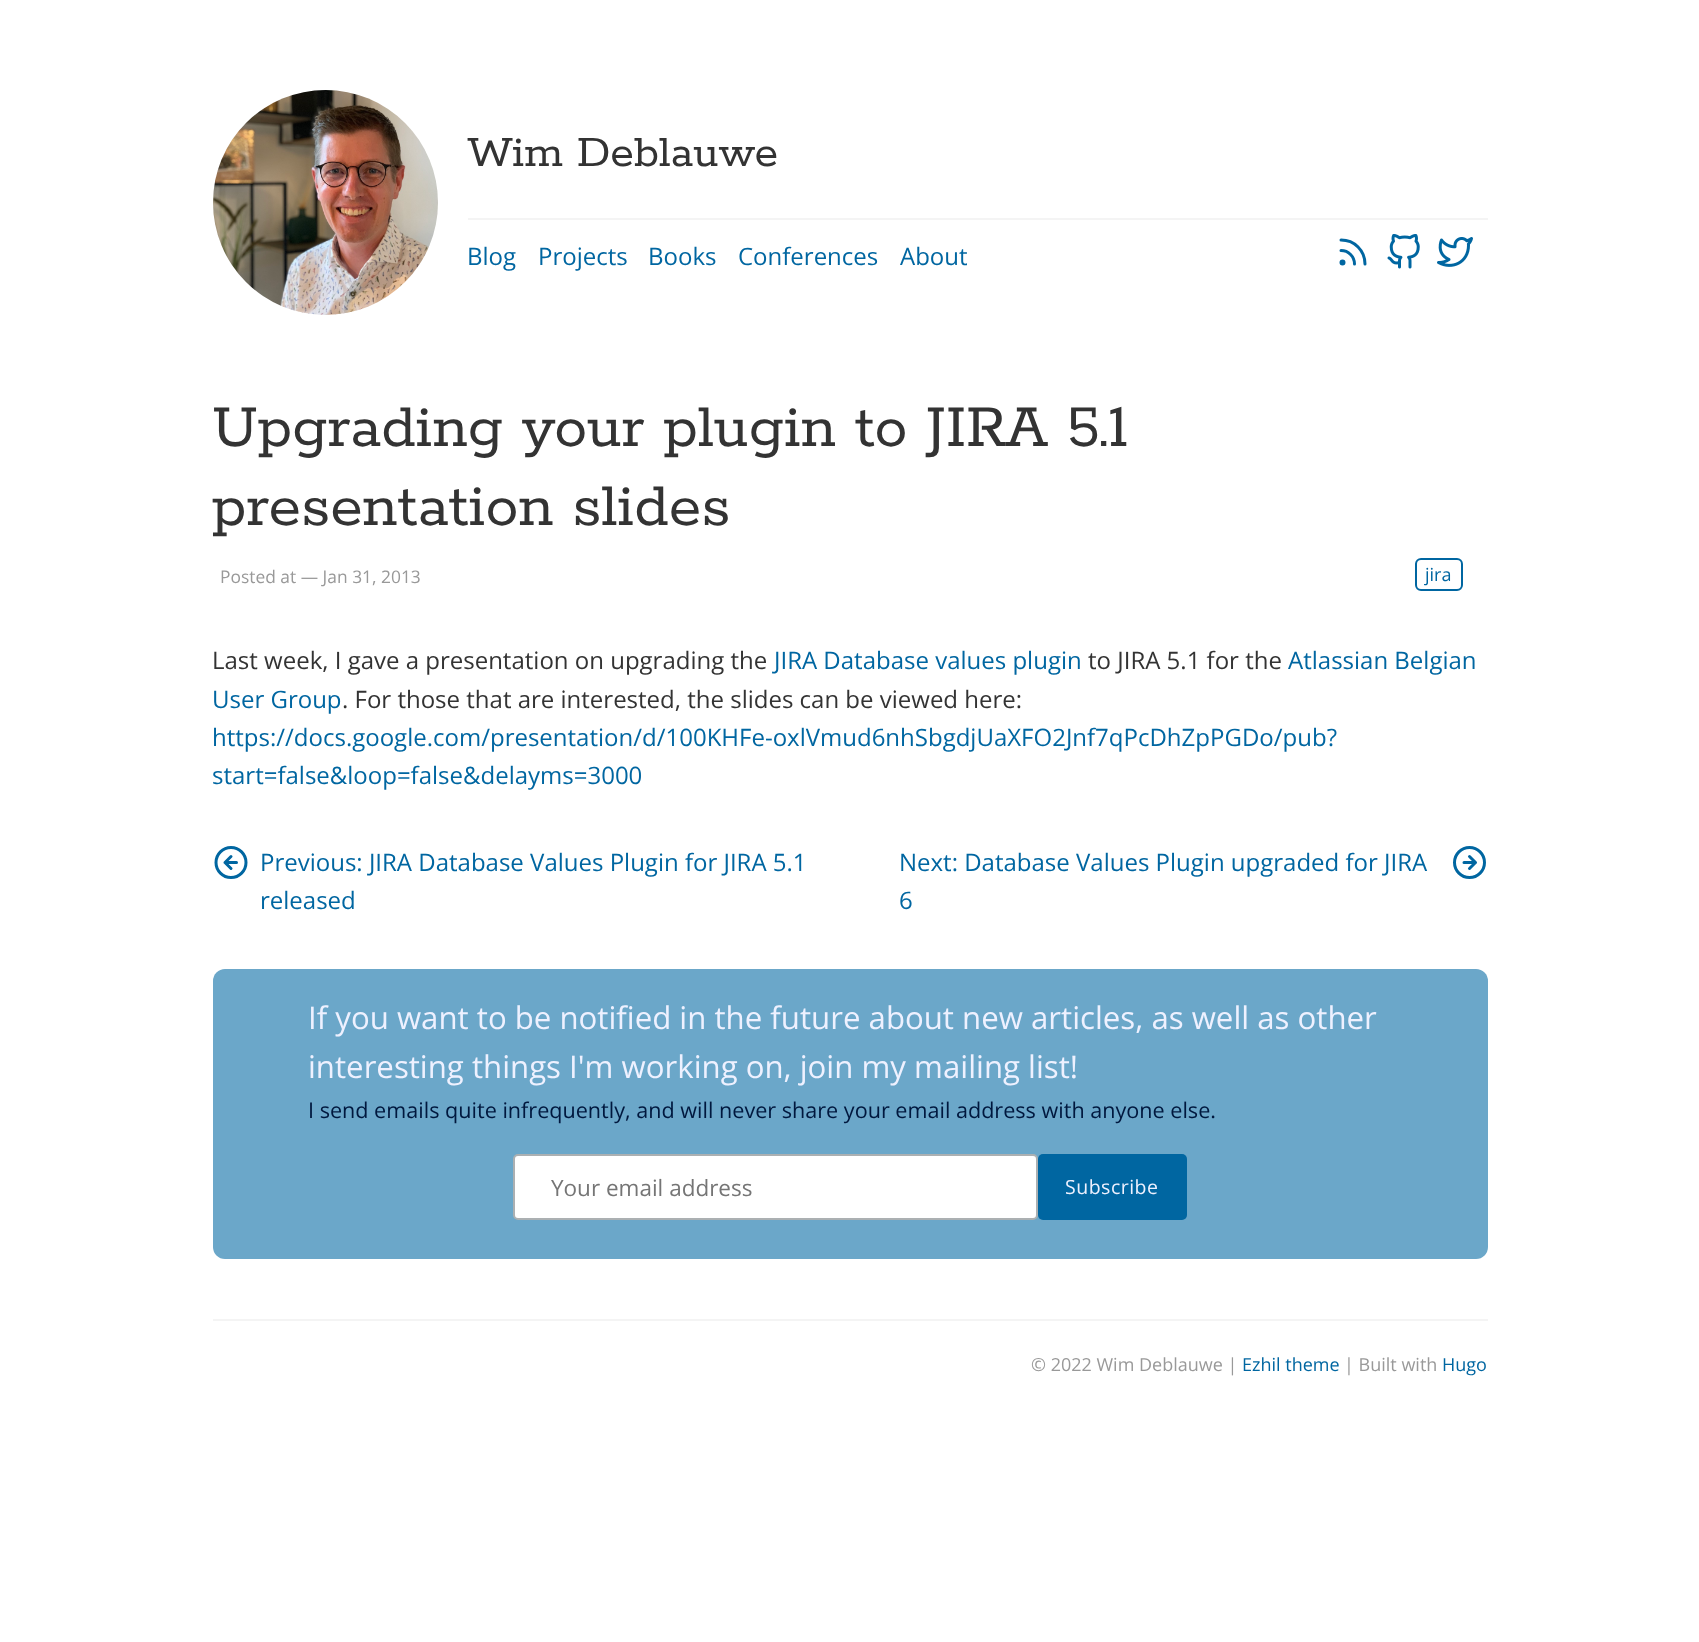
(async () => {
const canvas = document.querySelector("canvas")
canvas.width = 1699
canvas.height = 1642
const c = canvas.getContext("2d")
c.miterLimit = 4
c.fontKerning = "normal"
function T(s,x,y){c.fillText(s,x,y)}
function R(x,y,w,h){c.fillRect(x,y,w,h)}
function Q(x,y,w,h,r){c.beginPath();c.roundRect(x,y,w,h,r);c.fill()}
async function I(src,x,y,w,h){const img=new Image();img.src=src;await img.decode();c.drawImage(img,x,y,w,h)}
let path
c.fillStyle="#fff"
R(0,0,1699,1642)
await I("1.png",213,90,225,225)
c.font="600 48px Rokkitt"
c.fillStyle="#333"
T("Wim Deblauwe",467,166)
c.fillStyle="#f4f4f4"
R(468,218,1020,2)
c.font="24px Open Sans"
c.fillStyle="#0066a1"
T("Blog",467,265)
T("Projects",538,265)
T("Books",648,265)
T("Conferences",738,265)
T("About",900,265)
path = new Path2D("M1341 250.5c7.5 0 13.5 6 13.5 13.5m-13.5-24c13.5 0 24 10.5 24 24")
c.strokeStyle="#0066a1"
c.lineWidth=3
c.lineCap="round"
c.lineJoin="round"
c.stroke(path)
c.beginPath()
c.arc(1342.5,262.5,1.5,0,7)
c.stroke()
await I("2.png",1387,234,33,35)
await I("3.png",1437,237,36,30)
c.font="600 66px Rokkitt"
c.fillStyle="#333"
T("Upgrading your plugin to JIRA 5.1",212,446)
T("presentation slides",212,525)
c.font="17.4px Open Sans"
c.fillStyle="#999"
T("Posted at — Jan 31, 2013",220,583)
c.beginPath()
c.roundRect(1416,559,46,31,5)
c.lineWidth=2
c.lineJoin="miter"
c.stroke()
c.font="18px Open Sans"
c.fillStyle="#0066a1"
T("jira",1425,581)
c.font="24px Open Sans"
c.fillStyle="#333"
T("Last week, I gave a presentation on upgrading the",212,669)
c.fillStyle="#0066a1"
T("JIRA Database values plugin",774,669)
c.fillStyle="#333"
T("to JIRA 5.1 for the",1088,669)
c.fillStyle="#0066a1"
T("Atlassian Belgian",1288,669)
T("User Group",212,708)
c.fillStyle="#333"
T(". For those that are interested, the slides can be viewed here:",342,708)
c.fillStyle="#0066a1"
T("https://docs.google.com/presentation/d/100KHFe-oxlVmud6nhSbgdjUaXFO2Jnf7qPcDhZpPGDo/pub?",212,746)
T("start=false&loop=false&delayms=3000",212,784)
c.beginPath()
c.arc(231,862.5,15,0,7)
c.lineWidth=3
c.stroke()
path = new Path2D("M231 856.5l-6 6l6 6m5.5-6h-11.5")
c.lineJoin="round"
c.stroke(path)
T("Previous: JIRA Database Values Plugin for JIRA 5.1",260,871)
T("released",260,909)
T("Next: Database Values Plugin upgraded for JIRA",899,871)
c.beginPath()
c.arc(1469.5,862.5,15,0,7)
c.stroke()
path = new Path2D("M1469.5 868.5l6-6l-6-6m-5.5 6h11.5")
c.stroke(path)
T("6",899,909)
c.fillStyle="#6ba7c9"
Q(213,969,1275,290,12)
c.font="31.2px Open Sans"
c.fillStyle="#eef1ff"
T("If you want to be notified in the future about new articles, as well as other",308,1029)
T("interesting things I'm working on, join my mailing list!",308,1078)
c.font="21.6px Open Sans"
c.fillStyle="#00183e"
T("I send emails quite infrequently, and will never share your email address with anyone else.",308,1118)
c.fillStyle="#fff"
c.beginPath()
c.roundRect(514,1155,523,64,4)
c.fill()
c.strokeStyle="#abb0b2"
c.lineWidth=2
c.lineJoin="miter"
c.stroke()
c.font="22.5px Open Sans"
c.fillStyle="#757575"
T("Your email address",551,1196)
c.fillStyle="#0066a1"
Q(1038,1154,149,66,5)
c.letterSpacing="0.5px"
c.font="19.5px Open Sans"
c.fillStyle="#eef1ff"
T("Subscribe",1065,1194)
c.fillStyle="#f4f4f4"
R(213,1319,1275,2)
c.letterSpacing="0px"
c.font="18px Open Sans"
c.fillStyle="#999"
T("© 2022 Wim Deblauwe |",1031,1371)
c.fillStyle="#0066a1"
T("Ezhil theme",1242,1371)
c.fillStyle="#999"
T("| Built with",1344,1371)
c.fillStyle="#0066a1"
T("Hugo",1442,1371)
})()
